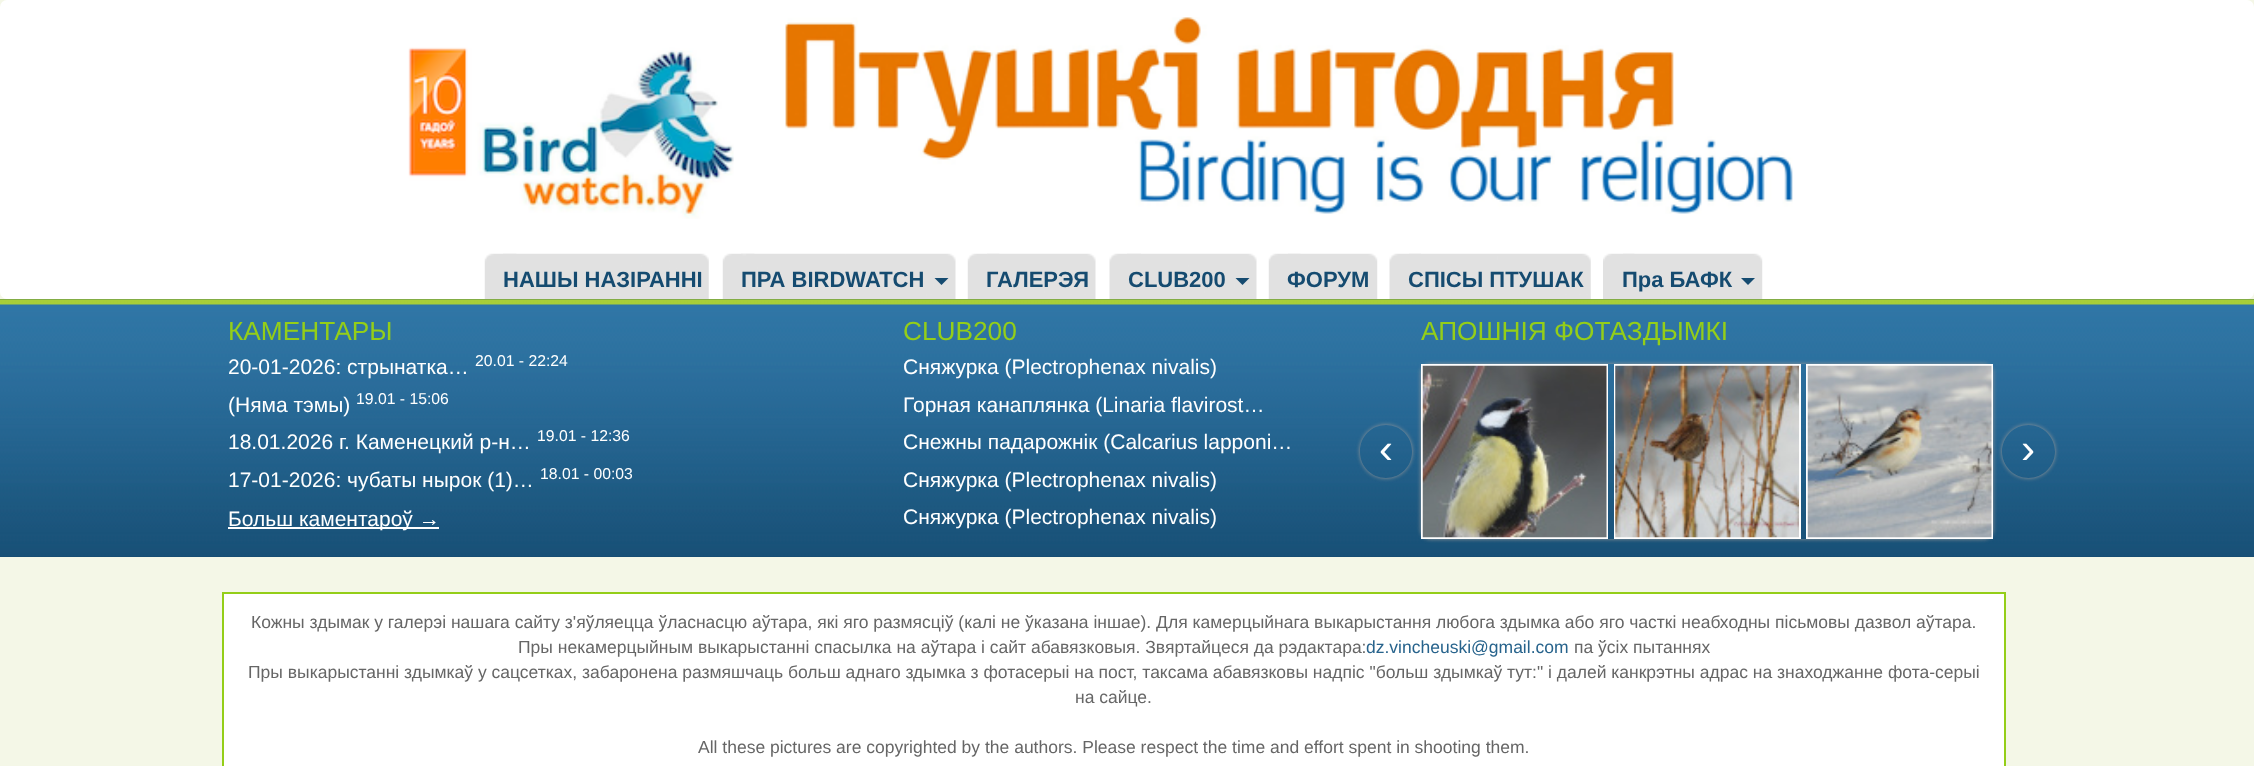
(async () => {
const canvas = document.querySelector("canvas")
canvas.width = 2254
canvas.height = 766
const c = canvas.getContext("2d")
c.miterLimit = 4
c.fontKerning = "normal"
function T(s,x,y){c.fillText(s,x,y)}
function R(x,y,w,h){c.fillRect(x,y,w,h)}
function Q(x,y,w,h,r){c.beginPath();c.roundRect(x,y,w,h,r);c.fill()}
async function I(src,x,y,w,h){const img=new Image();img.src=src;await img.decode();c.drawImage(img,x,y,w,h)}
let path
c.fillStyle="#f4f7e7"
R(0,0,2254,766)
c.fillStyle="#fff"
Q(0,0,2254,299,7)
await I("1.png",408,47,326,172)
await I("2.png",785,17,1008,197)
await I("3.png",484,253,33,46)
await I("4.png",503,253,206,46)
c.font="bold 22px Liberation Sans"
c.fillStyle="#154b70"
T("НАШЫ НАЗІРАННІ",503,287)
await I("5.png",722,253,33,46)
await I("6.png",741,253,215,46)
T("ПРА BIRDWATCH",741,287)
path = new Path2D("M934.5 278h14l-7 7z")
c.fill(path)
await I("3.png",967,253,33,46)
await I("7.png",987,253,109,46)
T("ГАЛЕРЭЯ",986,287)
await I("8.png",1109,253,32,46)
await I("9.png",1127,253,130,46)
T("CLUB200",1128,287)
path = new Path2D("M1235.5 278h14l-7 7z")
c.fill(path)
await I("3.png",1268,253,33,46)
await I("10.png",1288,253,90,46)
T("ФОРУМ",1287,287)
await I("8.png",1389,253,32,46)
await I("11.png",1409,253,182,46)
T("СПІСЫ ПТУШАК",1408,287)
await I("12.png",1603,253,32,46)
await I("13.png",1623,253,140,46)
T("Пра БАФК",1622,287)
path = new Path2D("M1741 278h14l-7 7z")
c.fill(path)
c.fillStyle="#144a6e"
R(0,299,2254,258)
await I("14.png",0,299,2254,258)
c.font="26.25px Liberation Sans"
c.fillStyle="#94ce18"
T("КАМЕНТАРЫ",228,340)
c.font="21px Liberation Sans"
c.fillStyle="#fff"
T("20-01-2026: стрынатка…",228,374)
c.font="15.75px Liberation Sans"
T("20.01 - 22:24",475,366)
c.font="21px Liberation Sans"
T("(Няма тэмы)",228,412)
c.font="15.75px Liberation Sans"
T("19.01 - 15:06",356,404)
c.font="21px Liberation Sans"
T("18.01.2026 г. Каменецкий р-н…",228,449)
c.font="15.75px Liberation Sans"
T("19.01 - 12:36",537,441)
c.font="21px Liberation Sans"
T("17-01-2026: чубаты нырок (1)…",228,487)
c.font="15.75px Liberation Sans"
T("18.01 - 00:03",540,479)
R(228,527,211,2)
c.font="21px Liberation Sans"
T("Больш каментароў →",228,526)
c.font="26.25px Liberation Sans"
c.fillStyle="#94ce18"
T("CLUB200",903,340)
c.font="21px Liberation Sans"
c.fillStyle="#fff"
T("Сняжурка (Plectrophenax nivalis)",903,374)
T("Горная канаплянка (Linaria flavirost…",903,412)
T("Снежны падарожнік (Calcarius lapponi…",903,449)
T("Сняжурка (Plectrophenax nivalis)",903,487)
T("Сняжурка (Plectrophenax nivalis)",903,524)
c.font="26.25px Liberation Sans"
c.fillStyle="#94ce18"
T("АПОШНІЯ ФОТАЗДЫМКІ",1421,340)
c.save()
path = new Path2D("M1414 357h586v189h-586zm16 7h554c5 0 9 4 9 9v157c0 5-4 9-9 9h-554c-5 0-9-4-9-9v-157c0-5 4-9 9-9z")
c.clip(path,"evenodd")
c.fillStyle="#999"
c.filter="blur(2px)"
c.beginPath()
c.roundRect(1421,364,572,175,9)
c.fill()
c.filter="none"
c.restore()
c.save()
path = new Path2D("M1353 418h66v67h-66zm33 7c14.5 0 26 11.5 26 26v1c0 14.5-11.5 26-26 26c-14.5 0-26-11.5-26-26v-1c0-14.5 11.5-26 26-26z")
c.clip(path,"evenodd")
c.fillStyle="#999"
c.filter="blur(2px)"
c.beginPath()
c.roundRect(1360,425,52,53,26)
c.fill()
c.filter="none"
c.restore()
c.font="42px Liberation Sans"
c.fillStyle="#fff"
T("‹",1379,463)
c.strokeStyle="#fff"
c.lineWidth=2
c.strokeRect(1422,365,185,173)
await I("15.png",1422,365,185,173)
c.strokeRect(1615,365,185,173)
await I("16.png",1615,365,184,173)
c.strokeRect(1807,365,185,173)
await I("17.png",1807,365,185,173)
c.save()
path = new Path2D("M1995 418h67v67h-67zm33.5 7c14.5 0 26.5 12 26.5 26.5c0 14.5-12 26.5-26.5 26.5c-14.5 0-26.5-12-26.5-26.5c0-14.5 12-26.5 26.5-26.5z")
c.clip(path,"evenodd")
c.fillStyle="#999"
c.filter="blur(2px)"
c.beginPath()
c.roundRect(2002,425,53,53,26.5)
c.fill()
c.filter="none"
c.restore()
T("›",2021,463)
c.beginPath()
c.rect(223,593,1782,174)
c.fill()
c.strokeStyle="#94ce18"
c.stroke()
c.font="17.5px Liberation Sans"
c.fillStyle="#666"
T("Кожны здымак у галерэі нашага сайту з'яўляецца ўласнасцю аўтара, які яго размясціў (калі не ўказана іншае). Для камерцыйнага выкарыстання любога здымка або яго часткі неабходны пісьмовы дазвол аўтара.",251,628)
T("Пры некамерцыйным выкарыстанні спасылка на аўтара і сайт абавязковыя. Звяртайцеся да рэдактара:",518,653)
c.fillStyle="#27638c"
T("dz.vincheuski@gmail.com",1366,653)
c.fillStyle="#666"
T("па ўсіх пытаннях",1574,653)
T("Пры выкарыстанні здымкаў у сацсетках, забаронена размяшчаць больш аднаго здымка з фотасерыі на пост, таксама абавязковы надпіс \"больш здымкаў тут:\" і далей канкрэтны адрас на знаходжанне фота-серыі",248,678)
T("на сайце.",1075,703)
T("All these pictures are copyrighted by the authors. Please respect the time and effort spent in shooting them.",698,753)
})()
